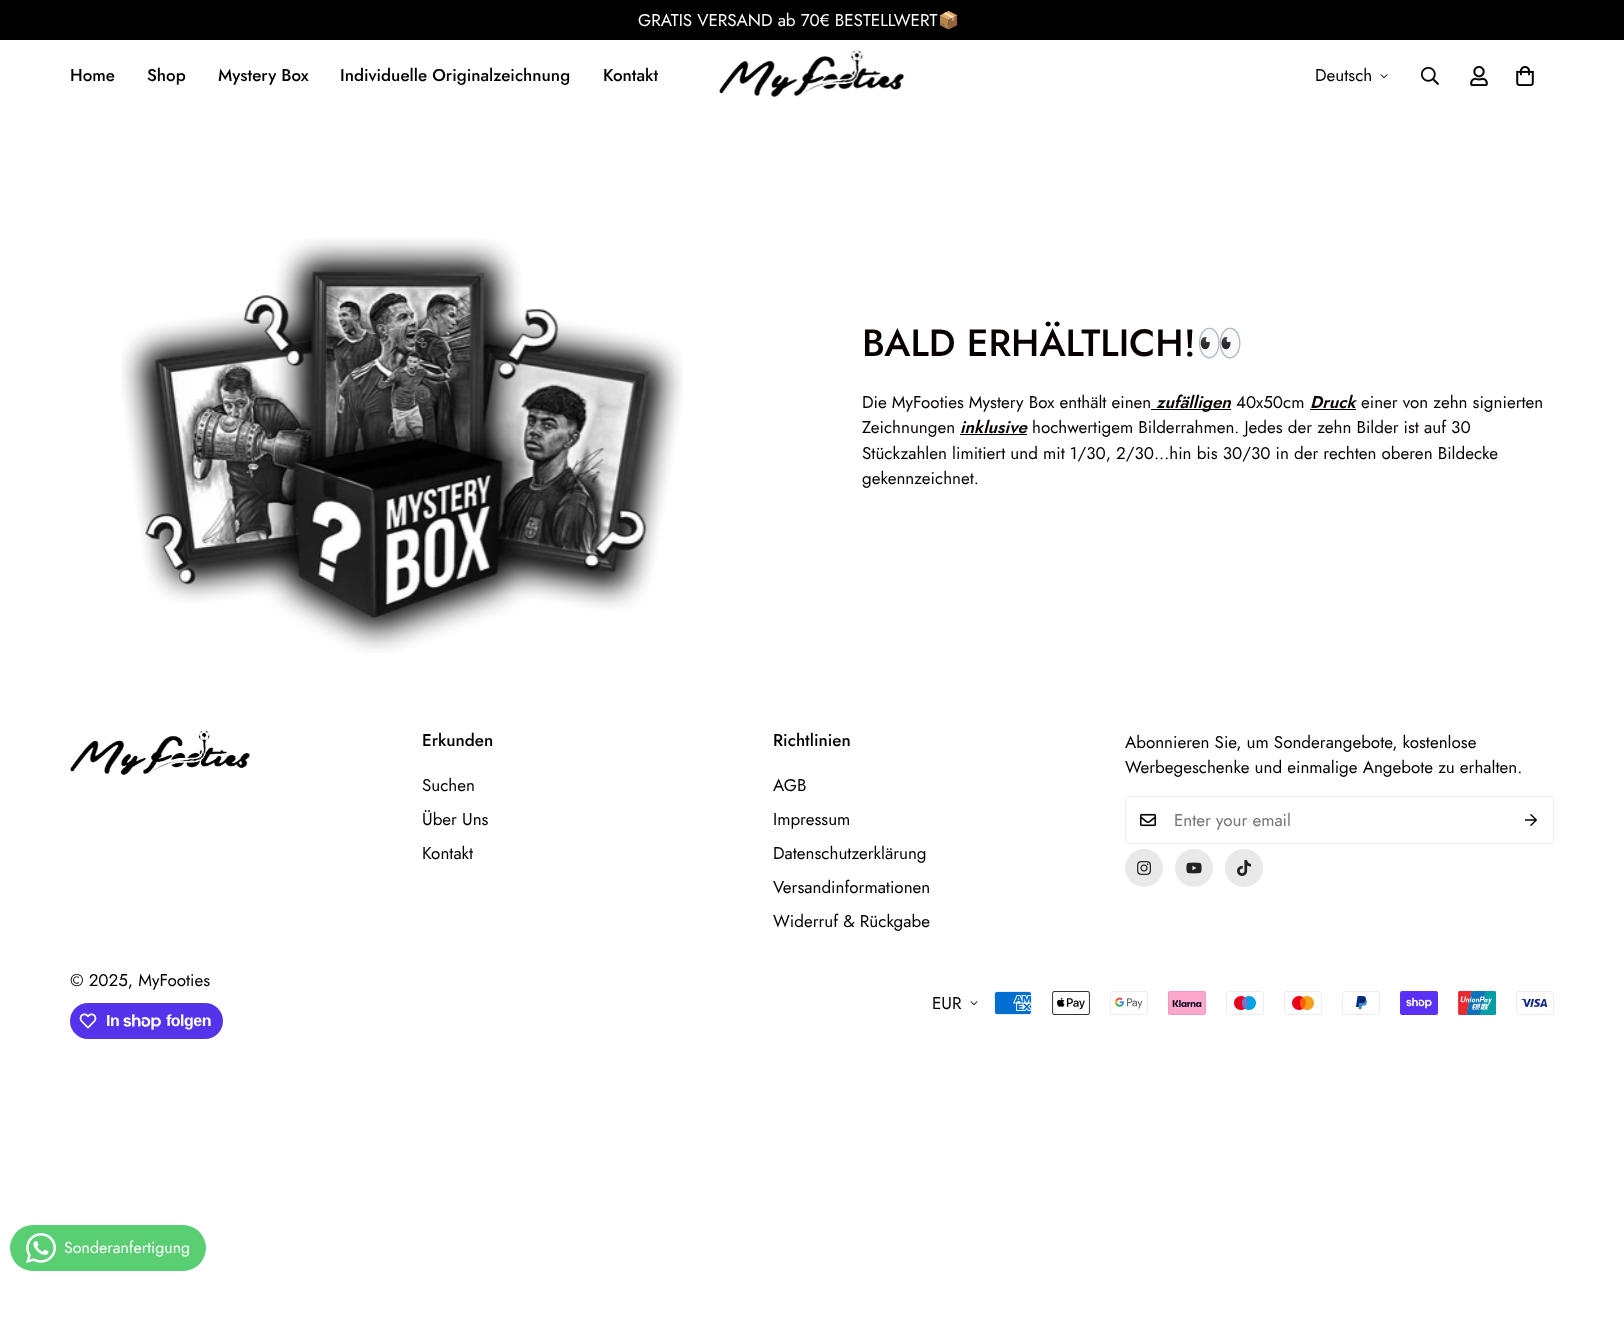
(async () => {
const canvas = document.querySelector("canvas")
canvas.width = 1624
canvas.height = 1336
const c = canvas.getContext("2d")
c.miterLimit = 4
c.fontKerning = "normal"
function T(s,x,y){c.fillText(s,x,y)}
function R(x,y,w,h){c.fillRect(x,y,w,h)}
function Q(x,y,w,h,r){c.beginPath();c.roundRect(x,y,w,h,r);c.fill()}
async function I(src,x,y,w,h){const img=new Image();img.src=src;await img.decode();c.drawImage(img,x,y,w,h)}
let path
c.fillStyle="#fff"
R(0,0,1624,1336)
c.fillStyle="#000"
R(0,0,1624,40)
c.font="17px Jost"
c.fillStyle="#fff"
T("GRATIS VERSAND ab 70€ BESTELLWERT",638,26)
c.font="17px Noto Color Emoji"
T("📦",938,26)
c.font="500 17px Jost"
c.fillStyle="#000"
T("Home",70,81)
T("Shop",147,81)
T("Mystery Box",218,81)
T("Individuelle Originalzeichnung",340,81)
T("Kontakt",603,81)
await I("1.png",719,50,186,48)
c.font="17px Jost"
T("Deutsch",1315,81)
await I("2.png",1380,74,8,5)
await I("3.png",1421,67,18,18)
await I("4.png",1470,66,18,20)
await I("5.png",1516,66,18,20)
await I("6.png",121,238,562,415)
c.font="500 38px Jost"
c.fillStyle="#080000"
T("BALD ERHÄLTLICH!",862,356)
c.font="38px Noto Color Emoji"
T("👀",1196,356)
c.font="17px Jost"
T("Die MyFooties Mystery Box enthält einen",862,408)
R(1151,409,80,1)
c.font="italic 600 17px Jost"
T("zufälligen",1156,408)
c.font="17px Jost"
T("40x50cm",1236,408)
c.font="italic 600 17px Jost"
T("Druck",1310,408)
R(1310,409,46,1)
c.font="17px Jost"
T("einer von zehn signierten",1361,408)
T("Zeichnungen",862,433)
c.font="italic 600 17px Jost"
T("inklusive",960,433)
R(960,434,67,1)
c.font="17px Jost"
T("hochwertigem Bilderrahmen. Jedes der zehn Bilder ist auf 30",1032,433)
T("Stückzahlen limitiert und mit 1/30, 2/30...hin bis 30/30 in der rechten oberen Bildecke",862,459)
T("gekennzeichnet.",862,484)
await I("7.png",70,730,180,46)
c.font="500 17px Jost"
c.fillStyle="#000"
T("Erkunden",422,746)
c.font="17px Jost"
T("Suchen",422,791)
T("Über Uns",422,825)
T("Kontakt",422,859)
c.font="500 17px Jost"
T("Richtlinien",773,746)
c.font="17px Jost"
T("AGB",773,791)
T("Impressum",773,825)
T("Datenschutzerklärung",773,859)
T("Versandinformationen",773,893)
T("Widerruf & Rückgabe",773,927)
T("Abonnieren Sie, um Sonderangebote, kostenlose",1125,748)
T("Werbegeschenke und einmalige Angebote zu erhalten.",1125,773)
c.fillStyle="#eee"
path = new Path2D("M1129 796h380v48h-380c-2 0-4-2-4-4v-40c0-2 2-4 4-4zm0 1h380v46h-380c-2 0-3-1-3-3v-40c0-2 1-3 3-3z")
c.fill(path,"evenodd")
await I("8.png",1140,813,16,14)
c.fillStyle="#757575"
T("Enter your email",1174,826)
c.fillStyle="#eee"
path = new Path2D("M1509 796h41c2 0 4 2 4 4v40c0 2-2 4-4 4h-41zm0 1h41c2 0 3 1 3 3v40c0 2-1 3-3 3h-41z")
c.fill(path,"evenodd")
await I("9.png",1524,814,13,12)
c.fillStyle="#e9e9e9"
c.beginPath()
c.arc(1144,868,19,0,7)
c.fill()
await I("10.png",1137,861,14,14)
c.beginPath()
c.arc(1194,868,19,0,7)
c.fill()
await I("11.png",1186,862,16,12)
c.beginPath()
c.arc(1244,868,19,0,7)
c.fill()
await I("12.png",1237,860,14,16)
c.fillStyle="#000"
T("© 2025, MyFooties",70,986)
c.fillStyle="#5433eb"
Q(70,1003,153,36,18)
await I("13.png",79,1013,18,16)
c.letterSpacing="-0.5px"
c.font="bold 16px Liberation Sans"
c.fillStyle="#fff"
T("In",106,1026)
await I("14.png",123,1014,38,16)
T("folgen",166,1026)
c.letterSpacing="0px"
c.font="17px Jost"
c.fillStyle="#000"
T("EUR",932,1009)
await I("2.png",970,1001,8,5)
await I("15.png",994,991,38,24)
await I("16.png",1052,991,38,24)
await I("17.png",1110,991,38,24)
await I("18.png",1168,991,38,24)
await I("19.png",1226,991,38,24)
await I("20.png",1284,991,38,24)
await I("21.png",1342,991,38,24)
await I("22.png",1400,991,38,24)
await I("23.png",1458,991,38,24)
await I("24.png",1516,991,38,24)
c.fillStyle="#59ce72"
Q(10,1225,196,46,23)
await I("25.png",26,1233,30,30)
c.font="16px Jost"
c.fillStyle="#fff"
T("Sonderanfertigung",64,1253)
})()
